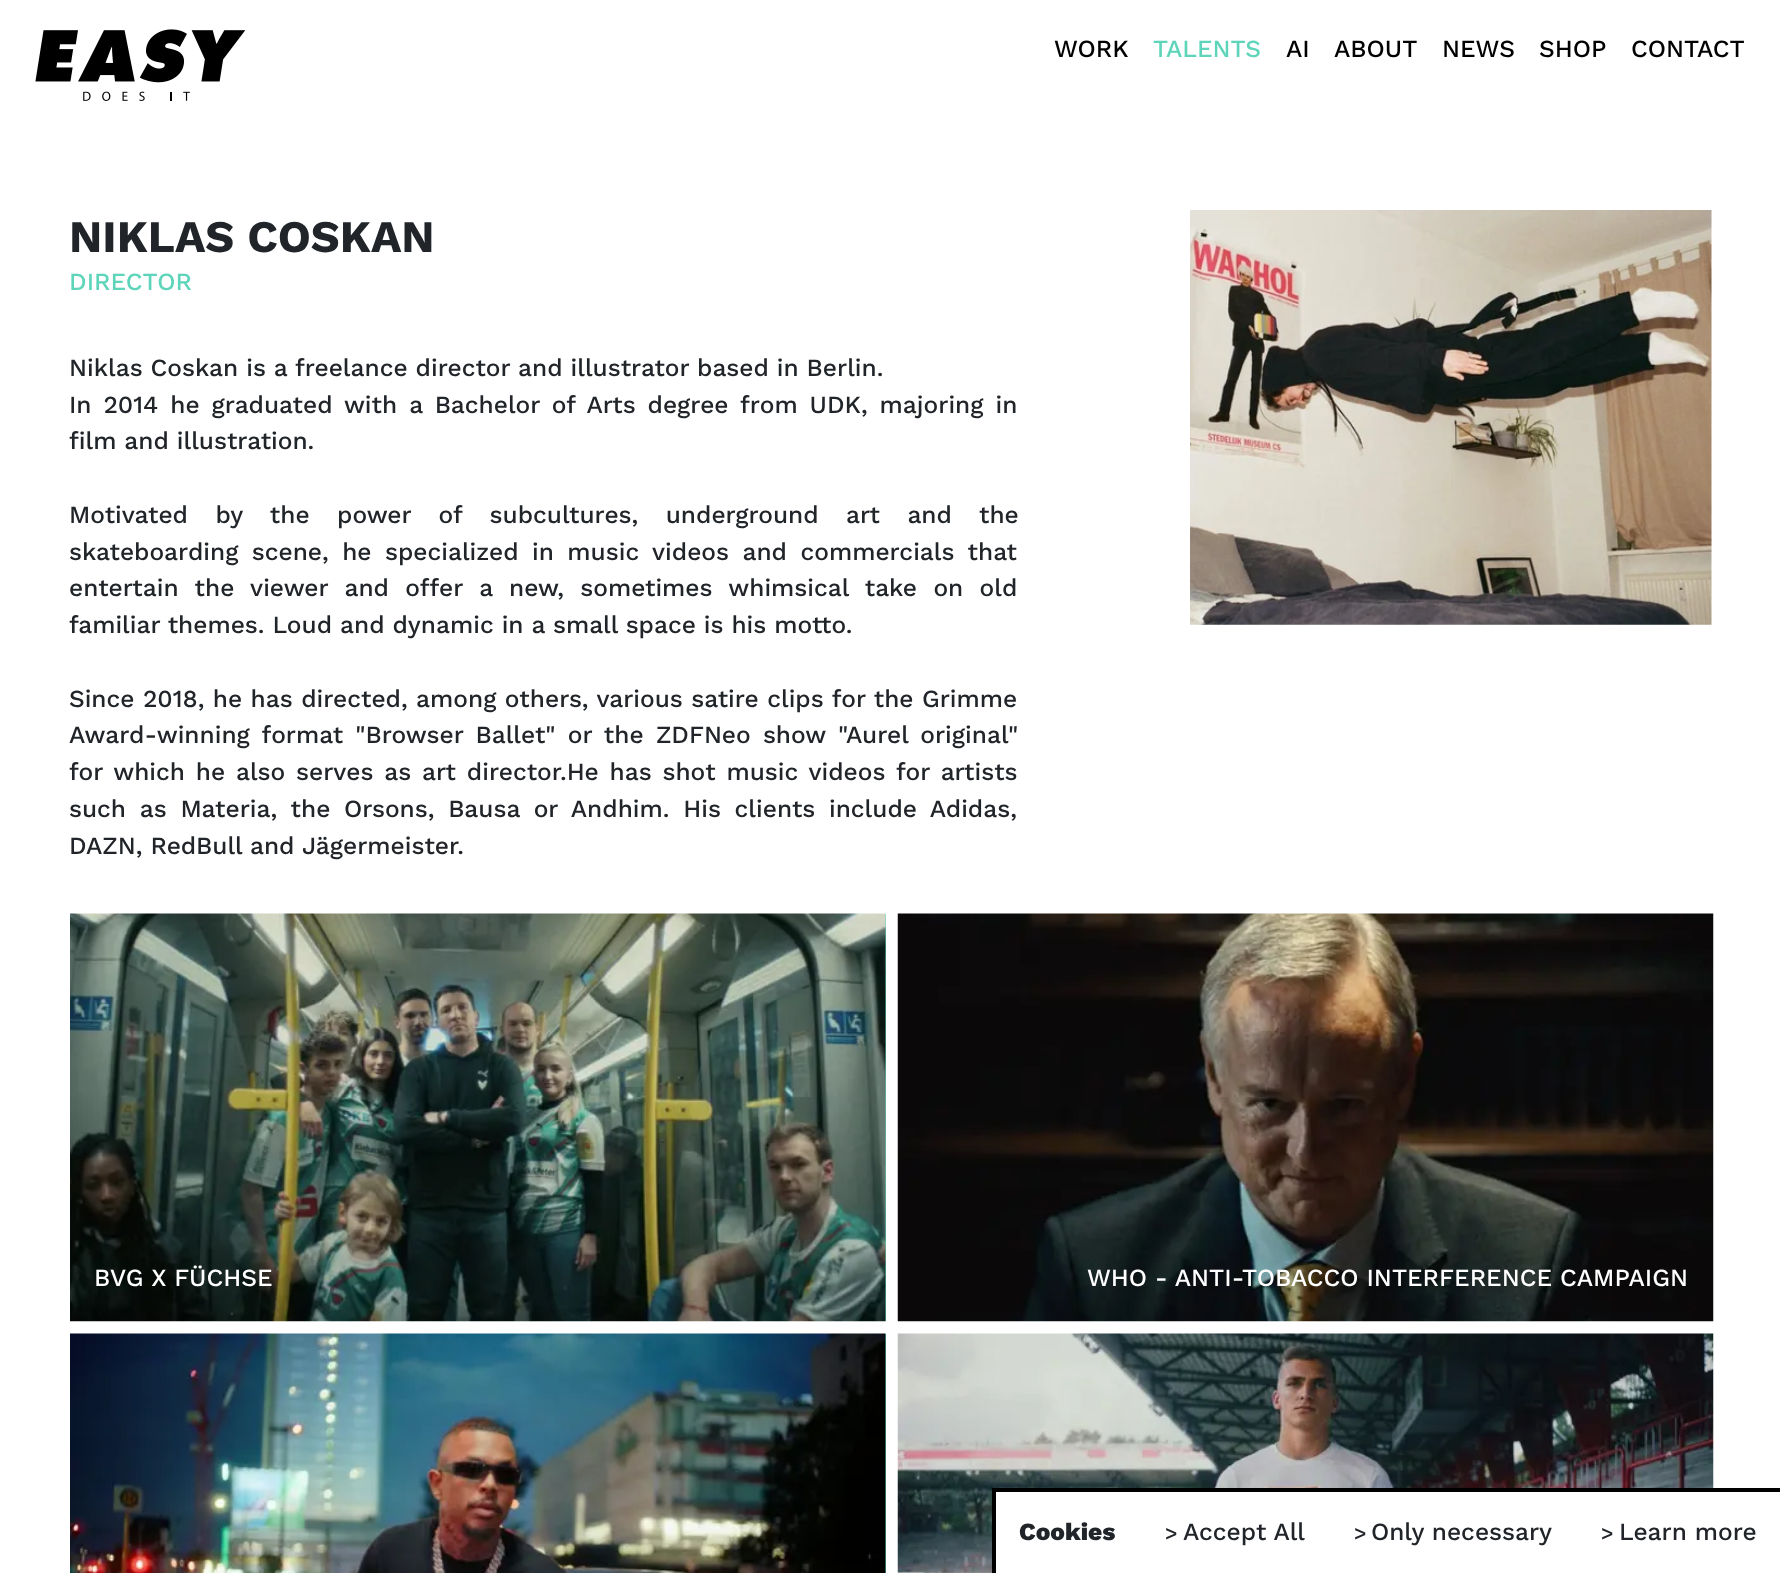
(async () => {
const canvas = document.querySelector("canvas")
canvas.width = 1780
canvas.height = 1573
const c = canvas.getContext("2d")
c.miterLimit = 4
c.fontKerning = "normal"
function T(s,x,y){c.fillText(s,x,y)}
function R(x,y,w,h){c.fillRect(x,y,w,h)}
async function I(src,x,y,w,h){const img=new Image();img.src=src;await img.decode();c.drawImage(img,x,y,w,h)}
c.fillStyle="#fff"
R(0,0,1780,1573)
await I("1.png",35,29,211,72)
c.font="500 24.5px Work Sans"
c.fillStyle="#000"
T("WORK",1054,57)
c.fillStyle="#5ed5ba"
T("TALENTS",1153,57)
c.fillStyle="#000"
T("AI",1286,57)
T("ABOUT",1334,57)
T("NEWS",1442,57)
T("SHOP",1539,57)
T("CONTACT",1631,57)
c.font="bold 45px Work Sans"
c.fillStyle="#212529"
T("NIKLAS COSKAN",69,252)
c.font="500 24.5px Work Sans"
c.fillStyle="#5ed5ba"
T("DIRECTOR",69,290)
c.fillStyle="#212529"
T("Niklas Coskan is a freelance director and illustrator based in Berlin.",69,376)
c.wordSpacing="4px"
T("In 2014 he graduated with a Bachelor of Arts degree from UDK, majoring in",69,413)
c.wordSpacing="0px"
T("film and illustration.",69,449)
c.wordSpacing="19.5px"
T("Motivated by the power of subcultures, underground art and the",69,523)
c.wordSpacing="5.5px"
T("skateboarding scene, he specialized in music videos and commercials that",69,560)
c.wordSpacing="8.4px"
T("entertain the viewer and offer a new, sometimes whimsical take on old",69,596)
c.wordSpacing="0px"
T("familiar themes. Loud and dynamic in a small space is his motto.",69,633)
c.wordSpacing="0.5px"
T("Since 2018, he has directed, among others, various satire clips for the Grimme",69,707)
c.wordSpacing="4.25px"
T("Award-winning format \"Browser Ballet\" or the ZDFNeo show \"Aurel original\"",69,743)
c.wordSpacing="2.9px"
T("for which he also serves as art director.He has shot music videos for artists",69,780)
c.wordSpacing="5.75px"
T("such as Materia, the Orsons, Bausa or Andhim. His clients include Adidas,",69,817)
c.wordSpacing="0px"
T("DAZN, RedBull and Jägermeister.",69,854)
await I("2.png",1190,210,522,415)
c.fillStyle="#5ed5ba"
R(885,914,1,407)
await I("3.png",70,913,816,409)
c.fillStyle="#fff"
T("BVG X FÜCHSE",94,1286)
await I("4.png",897,913,817,409)
T("WHO - ANTI-TOBACCO INTERFERENCE CAMPAIGN",1087,1286)
c.fillStyle="#5ed5ba"
R(885,1334,1,239)
await I("5.png",70,1333,816,240)
await I("6.png",897,1333,817,240)
c.fillStyle="#fff"
R(996,1492,718,81)
c.fillStyle="#000"
R(992,1488,788,4)
R(992,1488,4,85)
c.font="800 24.5px Work Sans"
c.fillStyle="#212529"
T("Cookies",1019,1540)
c.font="500 21px Work Sans"
T(">",1165,1540)
c.font="500 24.5px Work Sans"
T("Accept All",1183,1540)
c.font="500 21px Work Sans"
T(">",1354,1540)
c.font="500 24.5px Work Sans"
T("Only necessary",1371,1540)
c.font="500 21px Work Sans"
T(">",1601,1540)
c.font="500 24.5px Work Sans"
T("Learn more",1619,1540)
})()
